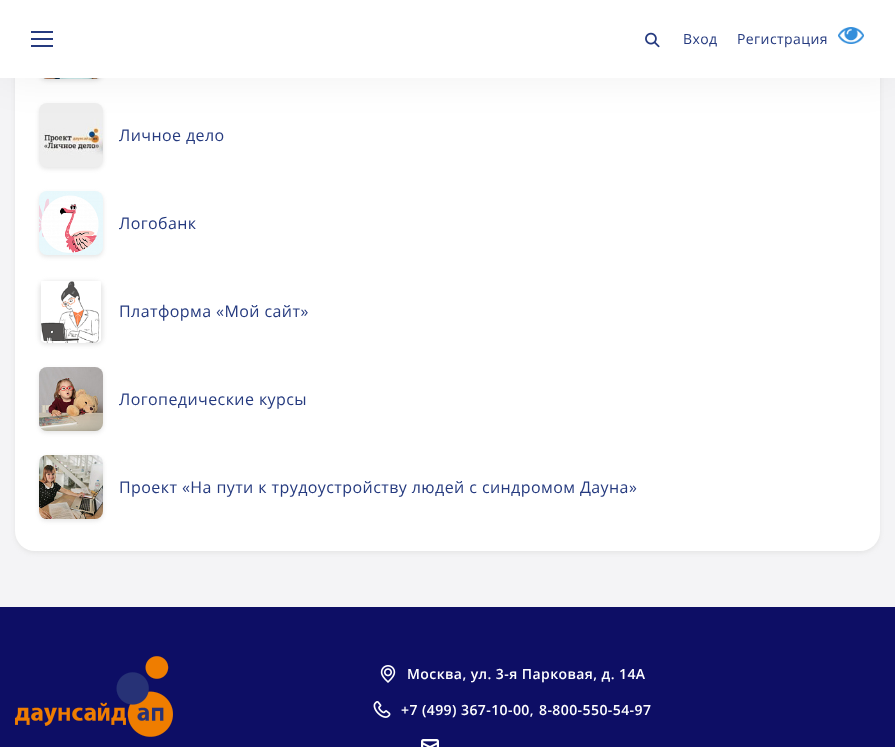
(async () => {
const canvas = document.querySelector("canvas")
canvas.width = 895
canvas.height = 747
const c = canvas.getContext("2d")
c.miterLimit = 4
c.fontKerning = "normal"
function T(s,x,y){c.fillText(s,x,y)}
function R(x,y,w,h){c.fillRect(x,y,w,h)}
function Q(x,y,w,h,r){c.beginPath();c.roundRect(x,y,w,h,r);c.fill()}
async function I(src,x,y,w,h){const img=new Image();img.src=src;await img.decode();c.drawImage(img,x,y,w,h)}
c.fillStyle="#f4f4f6"
R(0,0,895,747)
c.fillStyle="#e5e5e5"
c.filter="blur(2px)"
c.beginPath()
c.roundRect(15,-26,865,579,20)
c.fill()
c.filter="none"
c.fillStyle="#fff"
Q(15,-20,865,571,20)
c.fillStyle="#e5e5e5"
c.filter="blur(2px)"
c.beginPath()
c.roundRect(39,17,64,64,8)
c.fill()
c.filter="none"
await I("3.png",43,78,56,1)
c.filter="blur(2px)"
c.beginPath()
c.roundRect(39,105,64,64,8)
c.fill()
c.filter="none"
await I("4.png",39,103,64,64)
c.fillStyle="#0000000f"
c.filter="blur(20px)"
c.beginPath()
c.rect(0,0,895,78)
c.fill()
c.filter="none"
c.fillStyle="#fff"
R(0,0,895,78)
c.fillStyle="#253a7f"
R(31,38,22,2)
R(31,31,22,2)
R(31,45,22,2)
await I("1.png",645,32,15,16)
c.letterSpacing="0.42px"
c.font="14px Open Sans"
T("Вход",683,44)
T("Регистрация",737,44)
await I("2.png",838,27,26,17)
c.font="16px Open Sans"
T("Личное дело",119,141)
c.fillStyle="#e5e5e5"
c.filter="blur(2px)"
c.beginPath()
c.roundRect(39,193,64,64,8)
c.fill()
c.filter="none"
await I("5.png",39,191,64,64)
c.fillStyle="#253a7f"
T("Логобанк",119,229)
c.fillStyle="#e5e5e5"
c.filter="blur(2px)"
c.beginPath()
c.roundRect(39,281,64,64,8)
c.fill()
c.filter="none"
await I("6.png",41,281,60,62)
c.fillStyle="#253a7f"
T("Платформа «Мой сайт»",119,317)
c.fillStyle="#e5e5e5"
c.filter="blur(2px)"
c.beginPath()
c.roundRect(39,369,64,64,8)
c.fill()
c.filter="none"
await I("7.png",39,367,64,64)
c.fillStyle="#253a7f"
T("Логопедические курсы",119,405)
c.fillStyle="#e5e5e5"
c.filter="blur(2px)"
c.beginPath()
c.roundRect(39,457,64,64,8)
c.fill()
c.filter="none"
await I("8.png",39,455,64,64)
c.fillStyle="#253a7f"
T("Проект «На пути к трудоустройству людей с синдромом Дауна»",119,493)
c.fillStyle="#0d0e65"
R(0,607,895,140)
await I("9.png",15,656,158,81)
await I("10.png",380,665,16,18)
c.font="600 14px Open Sans"
c.fillStyle="#fff"
T("Москва, ул. 3-я Парковая, д. 14А",407,679)
await I("11.png",373,701,18,17)
T("+7 (499) 367-10-00,",401,715)
T("8-800-550-54-97",539,715)
await I("12.png",421,739,18,8)
})()
